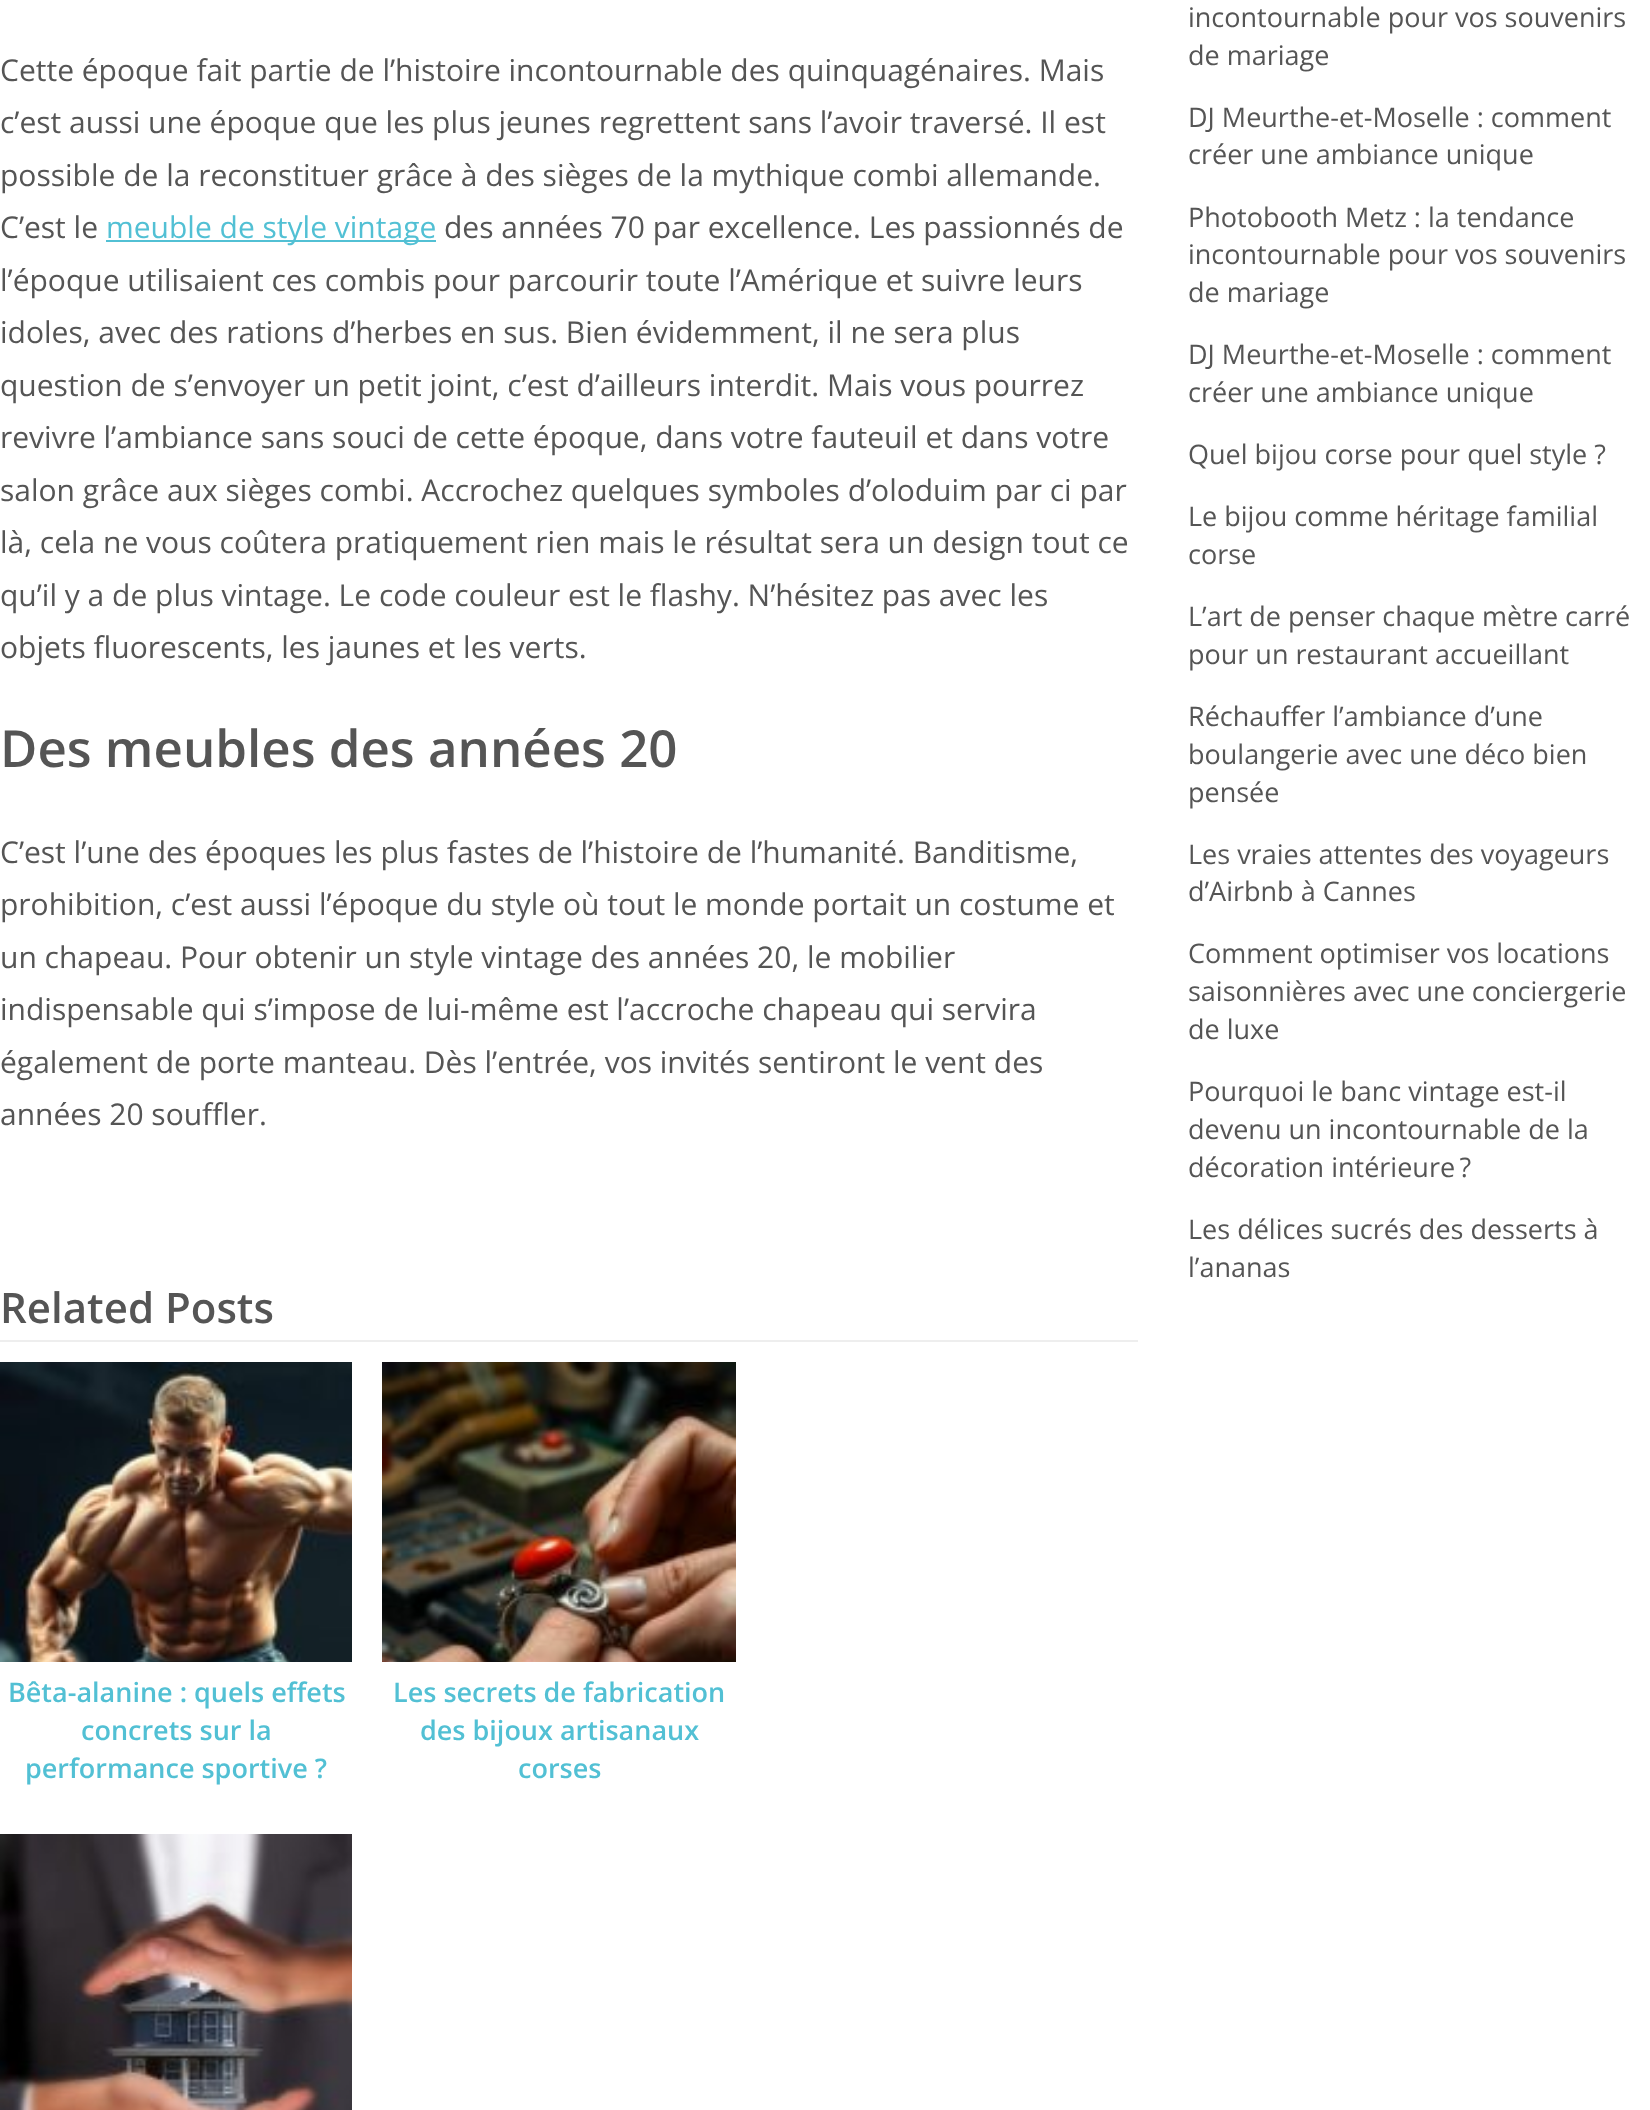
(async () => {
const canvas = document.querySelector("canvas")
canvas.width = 1650
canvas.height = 2110
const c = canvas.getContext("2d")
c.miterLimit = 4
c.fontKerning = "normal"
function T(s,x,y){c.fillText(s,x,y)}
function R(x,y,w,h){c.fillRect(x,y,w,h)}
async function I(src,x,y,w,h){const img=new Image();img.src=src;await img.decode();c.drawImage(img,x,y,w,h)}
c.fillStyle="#fff"
R(0,0,1650,2110)
c.font="30px Open Sans"
c.fillStyle="#555"
T("Cette époque fait partie de l’histoire incontournable des quinquagénaires. Mais",0,81)
T("c’est aussi une époque que les plus jeunes regrettent sans l’avoir traversé. Il est",0,133)
T("possible de la reconstituer grâce à des sièges de la mythique combi allemande.",0,186)
T("C’est le",0,238)
c.fillStyle="#52c0d4"
R(106,240,330,2)
T("meuble de style vintage",106,238)
c.fillStyle="#555"
T("des années 70 par excellence. Les passionnés de",444,238)
T("l’époque utilisaient ces combis pour parcourir toute l’Amérique et suivre leurs",0,291)
T("idoles, avec des rations d’herbes en sus. Bien évidemment, il ne sera plus",0,343)
T("question de s’envoyer un petit joint, c’est d’ailleurs interdit. Mais vous pourrez",0,396)
T("revivre l’ambiance sans souci de cette époque, dans votre fauteuil et dans votre",0,448)
T("salon grâce aux sièges combi. Accrochez quelques symboles d’oloduim par ci par",0,501)
T("là, cela ne vous coûtera pratiquement rien mais le résultat sera un design tout ce",0,553)
T("qu’il y a de plus vintage. Le code couleur est le flashy. N’hésitez pas avec les",0,606)
T("objets fluorescents, les jaunes et les verts.",0,658)
c.font="600 51px Open Sans"
T("Des meubles des années 20",0,767)
c.font="30px Open Sans"
T("C’est l’une des époques les plus fastes de l’histoire de l’humanité. Banditisme,",0,863)
T("prohibition, c’est aussi l’époque du style où tout le monde portait un costume et",0,915)
T("un chapeau. Pour obtenir un style vintage des années 20, le mobilier",0,968)
T("indispensable qui s’impose de lui-même est l’accroche chapeau qui servira",0,1020)
T("également de porte manteau. Dès l’entrée, vos invités sentiront le vent des",0,1073)
T("années 20 souffler.",0,1125)
c.fillStyle="#eee"
R(0,1340,1138,2)
c.font="600 42px Open Sans"
c.fillStyle="#555"
T("Related Posts",0,1323)
await I("1.png",0,1362,352,300)
c.font="600 27px Open Sans"
c.fillStyle="#52c0d4"
T("Bêta-alanine : quels effets",8,1702)
T("concrets sur la",81,1740)
T("performance sportive ?",25,1778)
await I("2.png",382,1362,354,300)
T("Les secrets de fabrication",393,1702)
T("des bijoux artisanaux",420,1740)
T("corses",518,1778)
await I("3.png",0,1834,352,276)
c.font="27px Open Sans"
c.fillStyle="#555"
T("incontournable pour vos souvenirs",1188,27)
T("de mariage",1188,65)
T("DJ Meurthe-et-Moselle : comment",1188,127)
T("créer une ambiance unique",1188,164)
T("Photobooth Metz : la tendance",1188,227)
T("incontournable pour vos souvenirs",1188,264)
T("de mariage",1188,302)
T("DJ Meurthe-et-Moselle : comment",1188,364)
T("créer une ambiance unique",1188,402)
T("Quel bijou corse pour quel style ?",1188,464)
T("Le bijou comme héritage familial",1188,526)
T("corse",1188,564)
T("L’art de penser chaque mètre carré",1188,626)
T("pour un restaurant accueillant",1188,664)
T("Réchauffer l’ambiance d’une",1188,726)
T("boulangerie avec une déco bien",1188,764)
T("pensée",1188,802)
T("Les vraies attentes des voyageurs",1188,864)
T("d’Airbnb à Cannes",1188,901)
T("Comment optimiser vos locations",1188,963)
T("saisonnières avec une conciergerie",1188,1001)
T("de luxe",1188,1039)
T("Pourquoi le banc vintage est-il",1188,1101)
T("devenu un incontournable de la",1188,1139)
T("décoration intérieure ?",1188,1177)
T("Les délices sucrés des desserts à",1188,1239)
T("l’ananas",1188,1277)
})()
